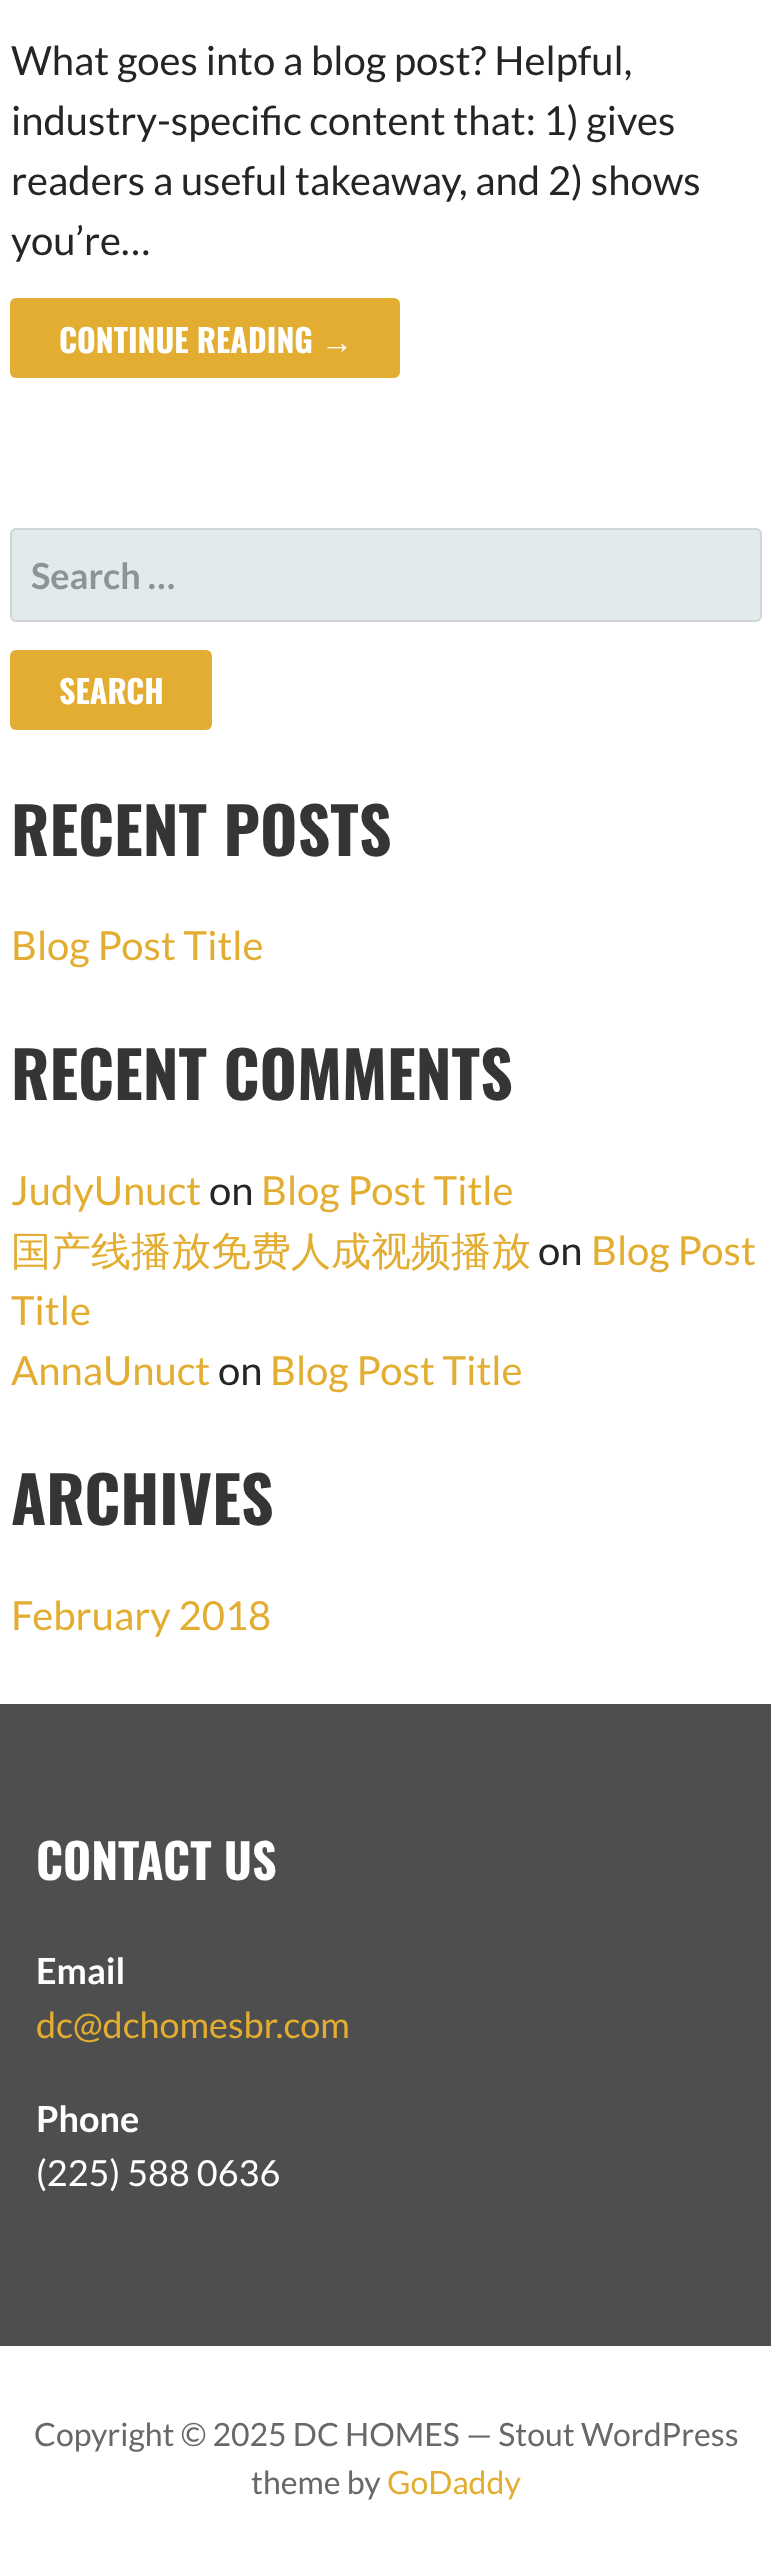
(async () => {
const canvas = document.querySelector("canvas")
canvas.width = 771
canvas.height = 2570
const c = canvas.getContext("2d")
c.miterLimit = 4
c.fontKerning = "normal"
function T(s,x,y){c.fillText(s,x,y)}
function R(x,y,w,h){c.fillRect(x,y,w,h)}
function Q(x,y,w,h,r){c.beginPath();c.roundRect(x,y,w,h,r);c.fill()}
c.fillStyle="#fff"
R(0,0,771,2570)
c.font="40px Lato"
c.fillStyle="#252525"
T("What goes into a blog post? Helpful,",11,75)
T("industry-specific content that: 1) gives",11,135)
T("readers a useful takeaway, and 2) shows",11,195)
T("you’re…",11,255)
c.fillStyle="#e3ad31"
Q(10,298,390,80,6)
c.font="bold 32px Oswald"
c.fillStyle="#fff"
T("CONTINUE READING",59,353)
c.font="bold 32px Liberation Sans"
T("→",321,353)
c.fillStyle="#e3eaeb"
Q(10,528,752,94,6)
c.beginPath()
c.roundRect(11,529,750,92,5)
c.strokeStyle="#2525251a"
c.lineWidth=2
c.stroke()
c.font="bold 36px Lato"
c.fillStyle="#8b9596"
T("Search …",31,589)
c.fillStyle="#e3ad31"
Q(10,650,202,80,6)
c.font="bold 32px Oswald"
c.fillStyle="#fff"
T("SEARCH",59,704)
c.font="bold 64px Oswald"
c.fillStyle="#353535"
T("RECENT POSTS",11,856)
c.font="40px Lato"
c.fillStyle="#e3ad31"
T("Blog Post Title",11,960)
c.font="bold 64px Oswald"
c.fillStyle="#353535"
T("RECENT COMMENTS",11,1100)
c.font="40px Lato"
c.fillStyle="#e3ad31"
T("JudyUnuct",11,1205)
c.fillStyle="#252525"
T("on",209,1205)
c.fillStyle="#e3ad31"
T("Blog Post Title",261,1205)
c.font="500 40px WenQuanYi Zen Hei"
T("国产线播放免费人成视频播放",11,1265)
c.font="40px Lato"
c.fillStyle="#252525"
T("on",538,1265)
c.fillStyle="#e3ad31"
T("Blog Post",591,1265)
T("Title",11,1325)
T("AnnaUnuct",11,1385)
c.fillStyle="#252525"
T("on",218,1385)
c.fillStyle="#e3ad31"
T("Blog Post Title",270,1385)
c.font="bold 64px Oswald"
c.fillStyle="#353535"
T("ARCHIVES",11,1525)
c.font="40px Lato"
c.fillStyle="#e3ad31"
T("February 2018",11,1630)
c.fillStyle="#4e4e4e"
R(0,1704,771,642)
c.font="bold 48px Oswald"
c.fillStyle="#fff"
T("CONTACT US",36,1880)
c.font="bold 36px Lato"
T("Email",36,1984)
c.font="36px Lato"
c.fillStyle="#e3ad31"
T("dc@dchomesbr.com",36,2038)
c.font="bold 36px Lato"
c.fillStyle="#fff"
T("Phone",36,2132)
c.font="36px Lato"
T("(225) 588 0636",36,2186)
c.font="32px Lato"
c.fillStyle="#686868"
T("Copyright © 2025 DC HOMES — Stout WordPress",34,2446)
T("theme by",251,2494)
c.fillStyle="#e3ad31"
T("GoDaddy",387,2494)
})()
